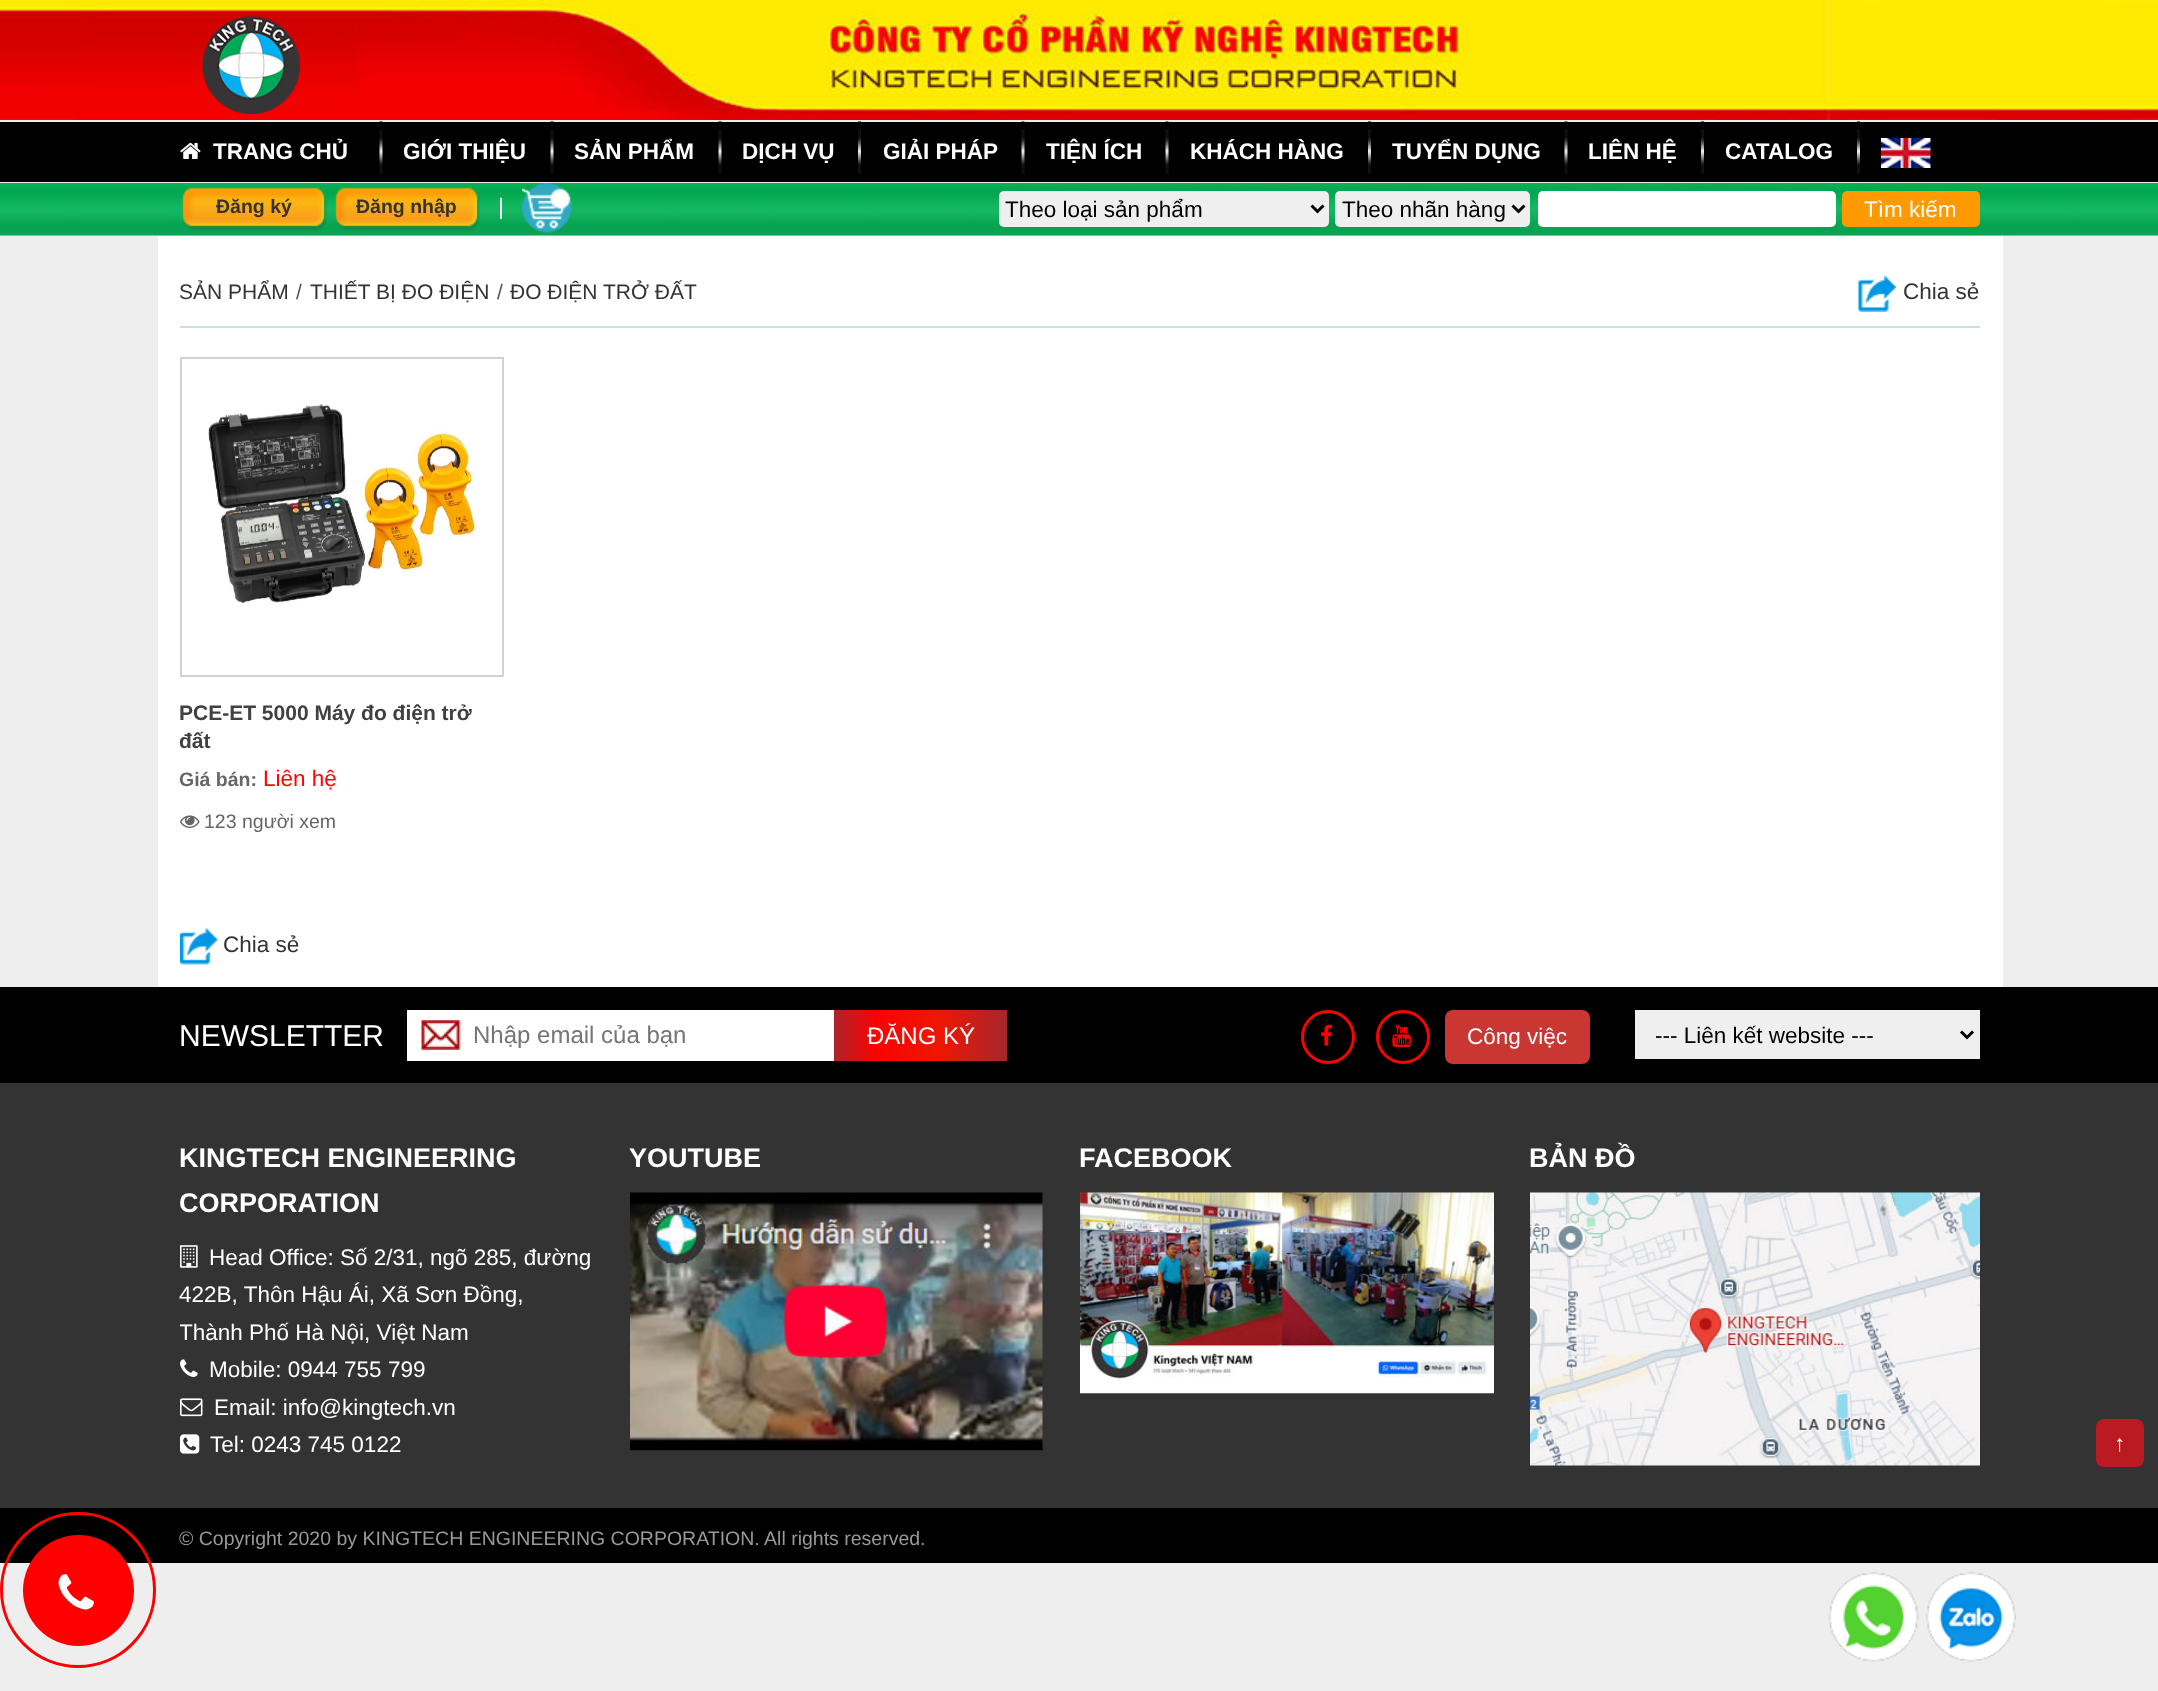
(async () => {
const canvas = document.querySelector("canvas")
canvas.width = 2158
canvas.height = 1691
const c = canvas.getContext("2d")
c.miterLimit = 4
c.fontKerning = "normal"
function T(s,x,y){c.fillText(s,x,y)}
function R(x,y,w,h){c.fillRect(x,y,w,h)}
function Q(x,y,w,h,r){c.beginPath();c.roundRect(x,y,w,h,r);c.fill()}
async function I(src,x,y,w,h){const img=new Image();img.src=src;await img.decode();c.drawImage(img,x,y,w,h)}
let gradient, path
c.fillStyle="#eee"
R(0,0,2158,1691)
await I("1.png",0,0,2158,120)
await I("2.png",202,16,98,98)
c.fillStyle="#000"
R(0,122,2158,60)
await I("3.png",180,142,21,17)
c.font="bold 22.5px Liberation Sans"
c.fillStyle="#fff"
T("TRANG CHỦ",213,159)
await I("4.png",379,121,4,53)
T("GIỚI THIỆU",403,159)
await I("4.png",550,121,4,53)
T("SẢN PHẨM",574,159)
await I("4.png",718,121,4,53)
T("DỊCH VỤ",742,159)
await I("5.png",858,121,3,53)
T("GIẢI PHÁP",883,159)
await I("4.png",1021,121,4,53)
T("TIỆN ÍCH",1046,159)
await I("4.png",1165,121,4,53)
T("KHÁCH HÀNG",1190,159)
await I("5.png",1368,121,3,53)
T("TUYỂN DỤNG",1392,159)
await I("4.png",1564,121,4,53)
T("LIÊN HỆ",1588,159)
await I("5.png",1701,121,3,53)
T("CATALOG",1725,159)
await I("5.png",1857,121,3,53)
await I("6.png",1881,138,50,30)
await I("7.png",0,183,2158,53)
await I("8.png",182,187,145,44)
c.font="bold 19.5px Liberation Sans"
c.fillStyle="#333"
T("Đăng ký",216,213)
await I("9.png",335,187,145,44)
T("Đăng nhập",356,213)
c.font="22.5px Liberation Sans"
c.fillStyle="#fff"
T("|",498,214)
await I("10.png",522,183,50,50)
c.fillStyle="#efefef"
Q(999,191,330,36,5)
path = new Path2D("M1311.5 205.5l6 6l6-6")
c.strokeStyle="#000"
c.lineWidth=3
c.stroke(path)
c.fillStyle="#000"
T("Theo loại sản phẩm",1005,217)
c.fillStyle="#efefef"
Q(1335,191,195,36,5)
path = new Path2D("M1512.5 205.5l6 6l6-6")
c.stroke(path)
c.fillStyle="#000"
T("Theo nhãn hàng",1342,217)
c.fillStyle="#fff"
Q(1538,191,298,36,5)
c.fillStyle="#f90"
Q(1842,191,138,36,5)
c.fillStyle="#fff"
T("Tìm kiếm",1864,217)
R(158,236,1845,751)
c.fillStyle="#ccdde4"
R(180,326,1800,2)
c.font="21px Liberation Sans"
c.fillStyle="#333"
T("SẢN PHẨM",179,299)
c.fillStyle="#545454"
T("/",296,299)
c.fillStyle="#333"
T("THIẾT BỊ ĐO ĐIỆN",310,299)
c.fillStyle="#545454"
T("/",497,299)
c.fillStyle="#333"
T("ĐO ĐIỆN TRỞ ĐẤT",510,299)
await I("11.png",1858,274,38,38)
c.font="22.5px Liberation Sans"
T("Chia sẻ",1903,299)
c.strokeStyle="#d2d2d2"
c.lineWidth=2
c.strokeRect(181,358,322,318)
await I("12.png",208,404,268,199)
c.font="bold 21px Liberation Sans"
c.fillStyle="#414141"
T("PCE-ET 5000 Máy đo điện trở",179,720)
T("đất",179,748)
c.font="bold 19.5px Liberation Sans"
c.fillStyle="#666"
T("Giá bán:",179,786)
c.font="22.5px Liberation Sans"
c.fillStyle="#ff0303"
T("Liên hệ",263,786)
await I("13.png",180,815,20,13)
c.font="19.5px Liberation Sans"
c.fillStyle="#666"
T("123 người xem",204,828)
await I("14.png",180,927,38,38)
c.font="22.5px Liberation Sans"
c.fillStyle="#333"
T("Chia sẻ",223,952)
c.fillStyle="#000"
R(0,987,2158,96)
c.font="30px Liberation Sans"
c.fillStyle="#fff"
T("NEWSLETTER",179,1046)
R(407,1010,427,51)
await I("15.png",421,1020,40,30)
c.font="24px Liberation Sans"
c.fillStyle="#757575"
T("Nhập email của bạn",473,1043)
gradient = c.createLinearGradient(834,1035,1007,1035)
gradient.addColorStop(0,"#ab242a")
gradient.addColorStop(.24,"#fb0202")
gradient.addColorStop(.61,"#ef1602")
gradient.addColorStop(1,"#a4272d")
c.fillStyle = gradient
R(834,1010,173,51)
c.fillStyle="#fff"
T("ĐĂNG KÝ",867,1044)
c.beginPath()
c.arc(1328,1037,25.5,0,7)
c.strokeStyle="#f00"
c.lineWidth=3
c.stroke()
await I("16.png",1321,1024,12,22)
c.beginPath()
c.arc(1403,1037,25.5,0,7)
c.stroke()
await I("17.png",1392,1024,19,24)
c.fillStyle="#ca3733"
Q(1445,1010,145,54,8)
c.font="22.5px Liberation Sans"
c.fillStyle="#fff"
T("Công việc",1467,1044)
c.fillStyle="#efefef"
R(1635,1010,345,49)
path = new Path2D("M1961 1031.5l6 6l6-6")
c.strokeStyle="#000"
c.stroke(path)
c.fillStyle="#000"
T("--- Liên kết website ---",1655,1043)
c.fillStyle="#333"
R(0,1083,2158,425)
c.font="bold 27px Liberation Sans"
c.fillStyle="#fff"
T("KINGTECH ENGINEERING",179,1167)
T("CORPORATION",179,1212)
await I("18.png",180,1245,18,23)
c.font="22.5px Liberation Sans"
T("Head Office: Số 2/31, ngõ 285, đường",209,1265)
T("422B, Thôn Hậu Ái, Xã Sơn Đồng,",179,1302)
c.save()
c.beginPath()
c.rect(180,1136,414,327)
c.clip()
T("Thành Phố Hà Nội, Việt Nam",179,1340)
c.restore()
await I("19.png",180,1359,18,18)
T("Mobile: 0944 755 799",209,1377)
await I("20.png",180,1398,23,19)
T("Email: info@kingtech.vn",214,1415)
await I("21.png",180,1434,20,20)
T("Tel: 0243 745 0122",210,1452)
c.font="bold 27px Liberation Sans"
T("YOUTUBE",629,1167)
await I("22.png",630,1192,414,259)
T("FACEBOOK",1079,1167)
await I("23.png",1080,1192,414,202)
T("BẢN ĐỒ",1529,1167)
await I("24.png",1530,1192,450,274)
c.fillStyle="#000"
R(0,1508,2158,55)
c.font="19.5px Liberation Sans"
c.fillStyle="#999"
T("© Copyright 2020 by KINGTECH ENGINEERING CORPORATION. All rights reserved.",179,1545)
c.fillStyle="#bb1a22"
Q(2096,1419,48,48,8)
c.font="bold 22.5px Liberation Sans"
c.fillStyle="#fff"
T("↑",2114,1451)
c.beginPath()
c.arc(78,1590,76.5,0,7)
c.strokeStyle="#f00"
c.stroke()
c.fillStyle="#f00"
c.beginPath()
c.arc(78.5,1590.5,55.5,0,7)
c.fill()
await I("25.png",58,1574,36,36)
await I("26.png",1828,1572,91,90)
await I("27.png",1926,1572,90,90)
})()
